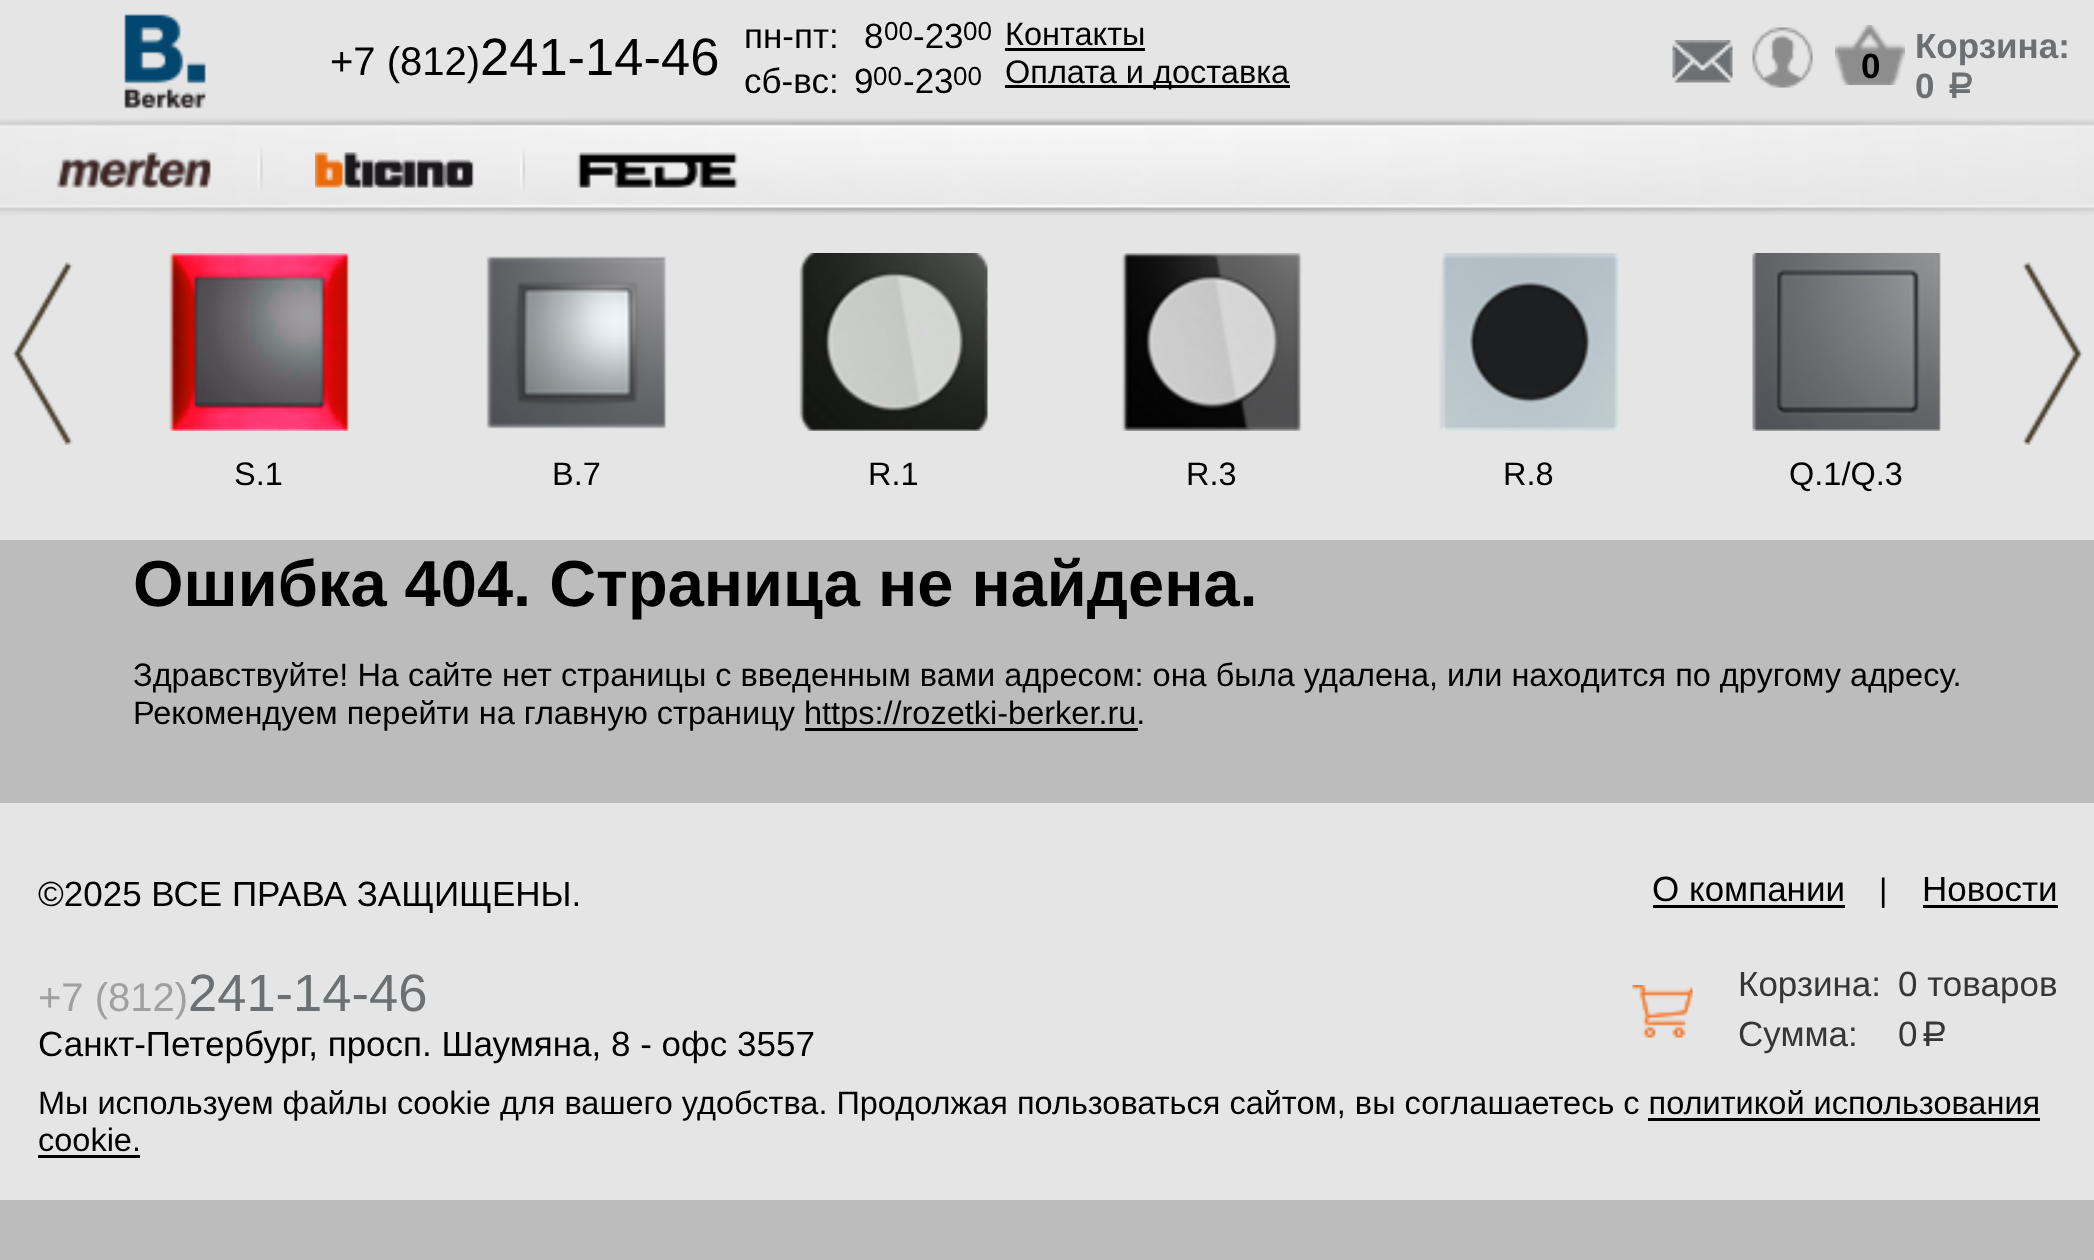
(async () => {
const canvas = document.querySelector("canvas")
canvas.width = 2094
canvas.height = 1260
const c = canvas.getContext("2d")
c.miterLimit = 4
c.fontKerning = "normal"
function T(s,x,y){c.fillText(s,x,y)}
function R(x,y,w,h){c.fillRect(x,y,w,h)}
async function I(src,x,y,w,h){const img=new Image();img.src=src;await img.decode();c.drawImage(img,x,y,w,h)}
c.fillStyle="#bcbcbc"
R(0,0,2094,1260)
c.fillStyle="#e5e5e5"
R(0,0,2094,540)
await I("1.png",124,14,82,95)
c.font="40px Liberation Sans"
c.fillStyle="#000"
T("+7 (812)",330,75)
c.font="52.5px Liberation Sans"
T("241-14-46",480,75)
c.font="35px Liberation Sans"
T("пн-пт:",744,48)
T("8",864,48)
c.font="26px Liberation Sans"
T("00",884,40)
c.font="35px Liberation Sans"
T("-23",913,48)
c.font="26px Liberation Sans"
T("00",963,40)
c.font="35px Liberation Sans"
T("сб-вс:",744,93)
T("9",854,93)
c.font="26px Liberation Sans"
T("00",873,85)
c.font="35px Liberation Sans"
T("-23",903,93)
c.font="26px Liberation Sans"
T("00",953,85)
c.font="32.5px Liberation Sans"
T("Контакты",1005,45)
R(1005,48,140,3)
R(1005,85,285,3)
T("Оплата и доставка",1005,83)
await I("2.png",1672,40,61,43)
await I("3.png",1752,27,61,61)
await I("4.png",1835,25,70,60)
c.font="bold 35px Liberation Sans"
T("0",1861,78)
c.fillStyle="#6c7072"
T("Корзина:",1915,58)
T("0",1915,98)
c.font="bold 35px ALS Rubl"
T("a",1944,98)
await I("5.png",0,118,2094,97)
await I("6.png",56,152,155,36)
await I("7.png",257,147,6,45)
await I("8.png",315,152,159,36)
await I("9.png",520,147,5,45)
await I("10.png",577,152,161,36)
await I("11.png",12,262,61,183)
await I("12.png",2022,262,61,183)
await I("13.png",169,253,180,178)
c.font="32.5px Liberation Sans"
c.fillStyle="#000"
T("S.1",234,485)
await I("14.png",486,256,181,173)
T("B.7",552,485)
await I("15.png",799,253,189,178)
T("R.1",868,485)
await I("16.png",1121,253,181,178)
T("R.3",1186,485)
await I("17.png",1439,253,180,178)
T("R.8",1503,485)
await I("18.png",1752,253,189,178)
T("Q.1/Q.3",1789,485)
c.font="bold 65px Liberation Sans"
T("Ошибка 404. Страница не найдена.",133,606)
c.font="32.5px Liberation Sans"
T("Здравствуйте! На сайте нет страницы с введенным вами адресом: она была удалена, или находится по другому адресу.",133,686)
T("Рекомендуем перейти на главную страницу",133,724)
R(805,728,333,3)
T("https://rozetki-berker.ru.",804,724)
c.fillStyle="#e5e5e5"
R(0,803,2094,397)
c.font="35px Liberation Sans"
c.fillStyle="#000"
T("©2025 ВСЕ ПРАВА ЗАЩИЩЕНЫ.",38,906)
T("О компании",1652,901)
R(1653,905,192,3)
c.font="32.5px Liberation Sans"
T("|",1879,901)
c.font="35px Liberation Sans"
T("Новости",1922,901)
R(1923,905,135,3)
c.font="40px Liberation Sans"
c.fillStyle="#a0a0a0"
T("+7 (812)",38,1011)
c.font="52.5px Liberation Sans"
c.fillStyle="#6c7072"
T("241-14-46",188,1011)
c.font="35px Liberation Sans"
c.fillStyle="#000"
T("Санкт-Петербург, просп. Шаумяна, 8 - офс 3557",38,1056)
await I("19.png",1632,985,61,53)
c.fillStyle="#363636"
T("Корзина:",1738,996)
T("0 товаров",1898,996)
T("Сумма:",1738,1046)
T("0",1898,1046)
c.font="35px ALS Rubl"
T("a",1918,1046)
c.font="32.5px Liberation Sans"
c.fillStyle="#000"
T("Мы используем файлы cookie для вашего удобства. Продолжая пользоваться сайтом, вы соглашаетесь с политикой использования",38,1114)
T("cookie.",38,1151)
R(1648,1118,392,3)
R(38,1155,102,3)
})()
